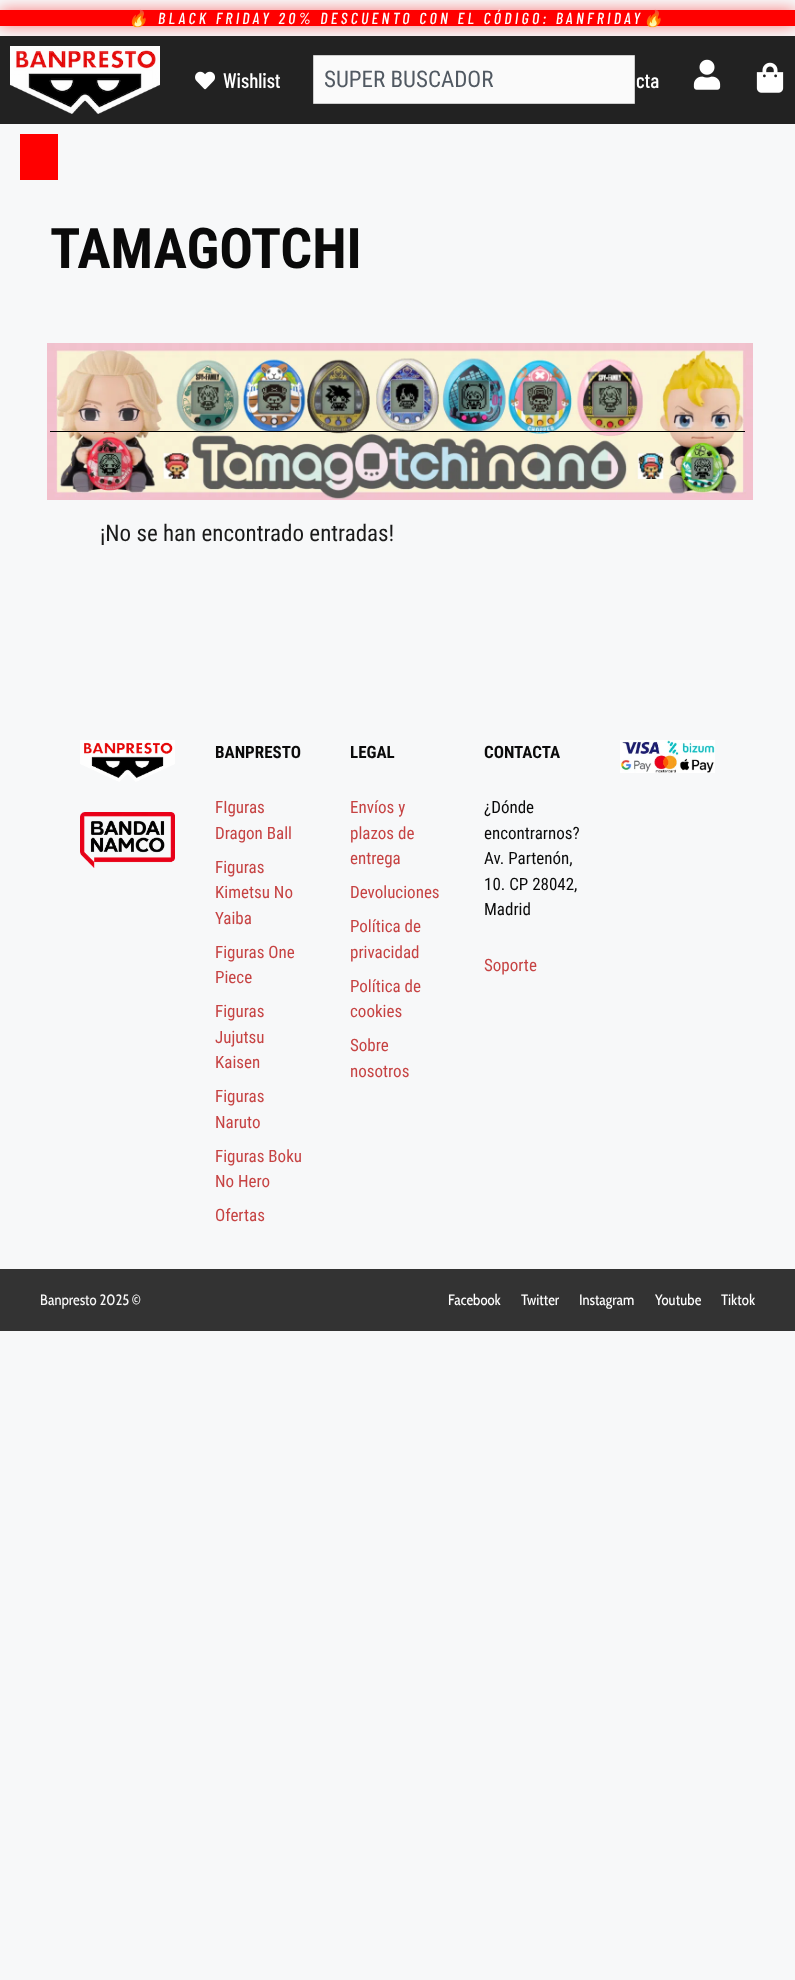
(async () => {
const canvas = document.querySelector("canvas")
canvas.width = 795
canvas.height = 1980
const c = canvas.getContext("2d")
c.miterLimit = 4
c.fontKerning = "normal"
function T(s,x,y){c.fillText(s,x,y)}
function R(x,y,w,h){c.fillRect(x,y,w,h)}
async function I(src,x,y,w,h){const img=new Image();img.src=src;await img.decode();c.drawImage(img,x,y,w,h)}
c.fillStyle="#f7f8f9"
R(0,0,795,1980)
c.fillStyle="#ff000080"
c.filter="blur(7.5px)"
c.beginPath()
c.rect(0,10,795,16)
c.fill()
c.filter="none"
c.fillStyle="#f00"
R(0,10,795,16)
c.letterSpacing="3.3px"
c.font="italic 16px Noto Color Emoji"
c.fillStyle="#fff"
T("🔥",128,24)
c.font="italic 500 16px Barlow Condensed"
T("BLACK FRIDAY 20% DESCUENTO CON EL CÓDIGO: BANFRIDAY",158,24)
c.font="italic 16px Noto Color Emoji"
T("🔥",643,24)
c.fillStyle="#222"
R(0,36,795,88)
await I("1.png",10,46,150,68)
await I("2.png",195,71,20,19)
c.letterSpacing="0px"
c.font="500 21px Barlow Condensed"
c.fillStyle="#fff"
T("Wishlist",223,88)
c.fillStyle="#fafafa"
c.beginPath()
c.rect(313.5,55.5,321,48)
c.fill()
c.strokeStyle="#cdcdcd"
c.stroke()
c.font="23px Roboto Condensed"
c.fillStyle="#515962"
T("SUPER BUSCADOR",324,87)
c.font="500 21px Barlow Condensed"
c.fillStyle="#fff"
T("cta",636,88)
await I("3.png",693,59,28,31)
await I("4.png",756,62,28,31)
c.fillStyle="#f00"
R(20,134,38,46)
c.font="bold 56px Roboto Condensed"
c.fillStyle="#0a0a0a"
T("TAMAGOTCHI",50,268)
await I("5.png",47,343,706,157)
c.fillStyle="#000"
R(50,431,695,1)
c.font="23px Roboto Condensed"
c.fillStyle="#1a1a1a"
T("¡No se han encontrado entradas!",100,541)
await I("6.png",80,740,95,42)
await I("7.png",80,812,95,56)
c.font="bold 17px Roboto Condensed"
c.fillStyle="#0a0a0a"
T("BANPRESTO",215,758)
c.font="17px Roboto Condensed"
c.fillStyle="#c64343"
T("FIguras",215,813)
T("Dragon Ball",215,839)
T("Figuras",215,873)
T("Kimetsu No",215,898)
T("Yaiba",215,924)
T("Figuras One",215,958)
T("Piece",215,983)
T("Figuras",215,1017)
T("Jujutsu",215,1043)
T("Kaisen",215,1068)
T("Figuras",215,1102)
T("Naruto",215,1128)
T("Figuras Boku",215,1162)
T("No Hero",215,1187)
T("Ofertas",215,1221)
c.font="bold 17px Roboto Condensed"
c.fillStyle="#0a0a0a"
T("LEGAL",350,758)
c.font="17px Roboto Condensed"
c.fillStyle="#c64343"
T("Envíos y",350,813)
T("plazos de",350,839)
T("entrega",350,864)
T("Devoluciones",350,898)
T("Política de",350,932)
T("privacidad",350,958)
T("Política de",350,992)
T("cookies",350,1017)
T("Sobre",350,1051)
T("nosotros",350,1077)
c.font="bold 17px Roboto Condensed"
c.fillStyle="#0a0a0a"
T("CONTACTA",484,758)
c.font="17px Roboto Condensed"
T("¿Dónde",484,813)
T("encontrarnos?",484,839)
T("Av. Partenón,",484,864)
T("10. CP 28042,",484,890)
T("Madrid",484,915)
c.fillStyle="#c64343"
T("Soporte",484,971)
await I("8.png",620,740,95,33)
c.fillStyle="#333"
R(0,1269,795,62)
c.font="15px Cabin Condensed"
c.fillStyle="#f8f8f8"
T("Banpresto 2025 ©",40,1305)
c.fillStyle="#fff"
T("Facebook",448,1305)
T("Twitter",521,1305)
T("Instagram",579,1305)
T("Youtube",655,1305)
T("Tiktok",721,1305)
})()
